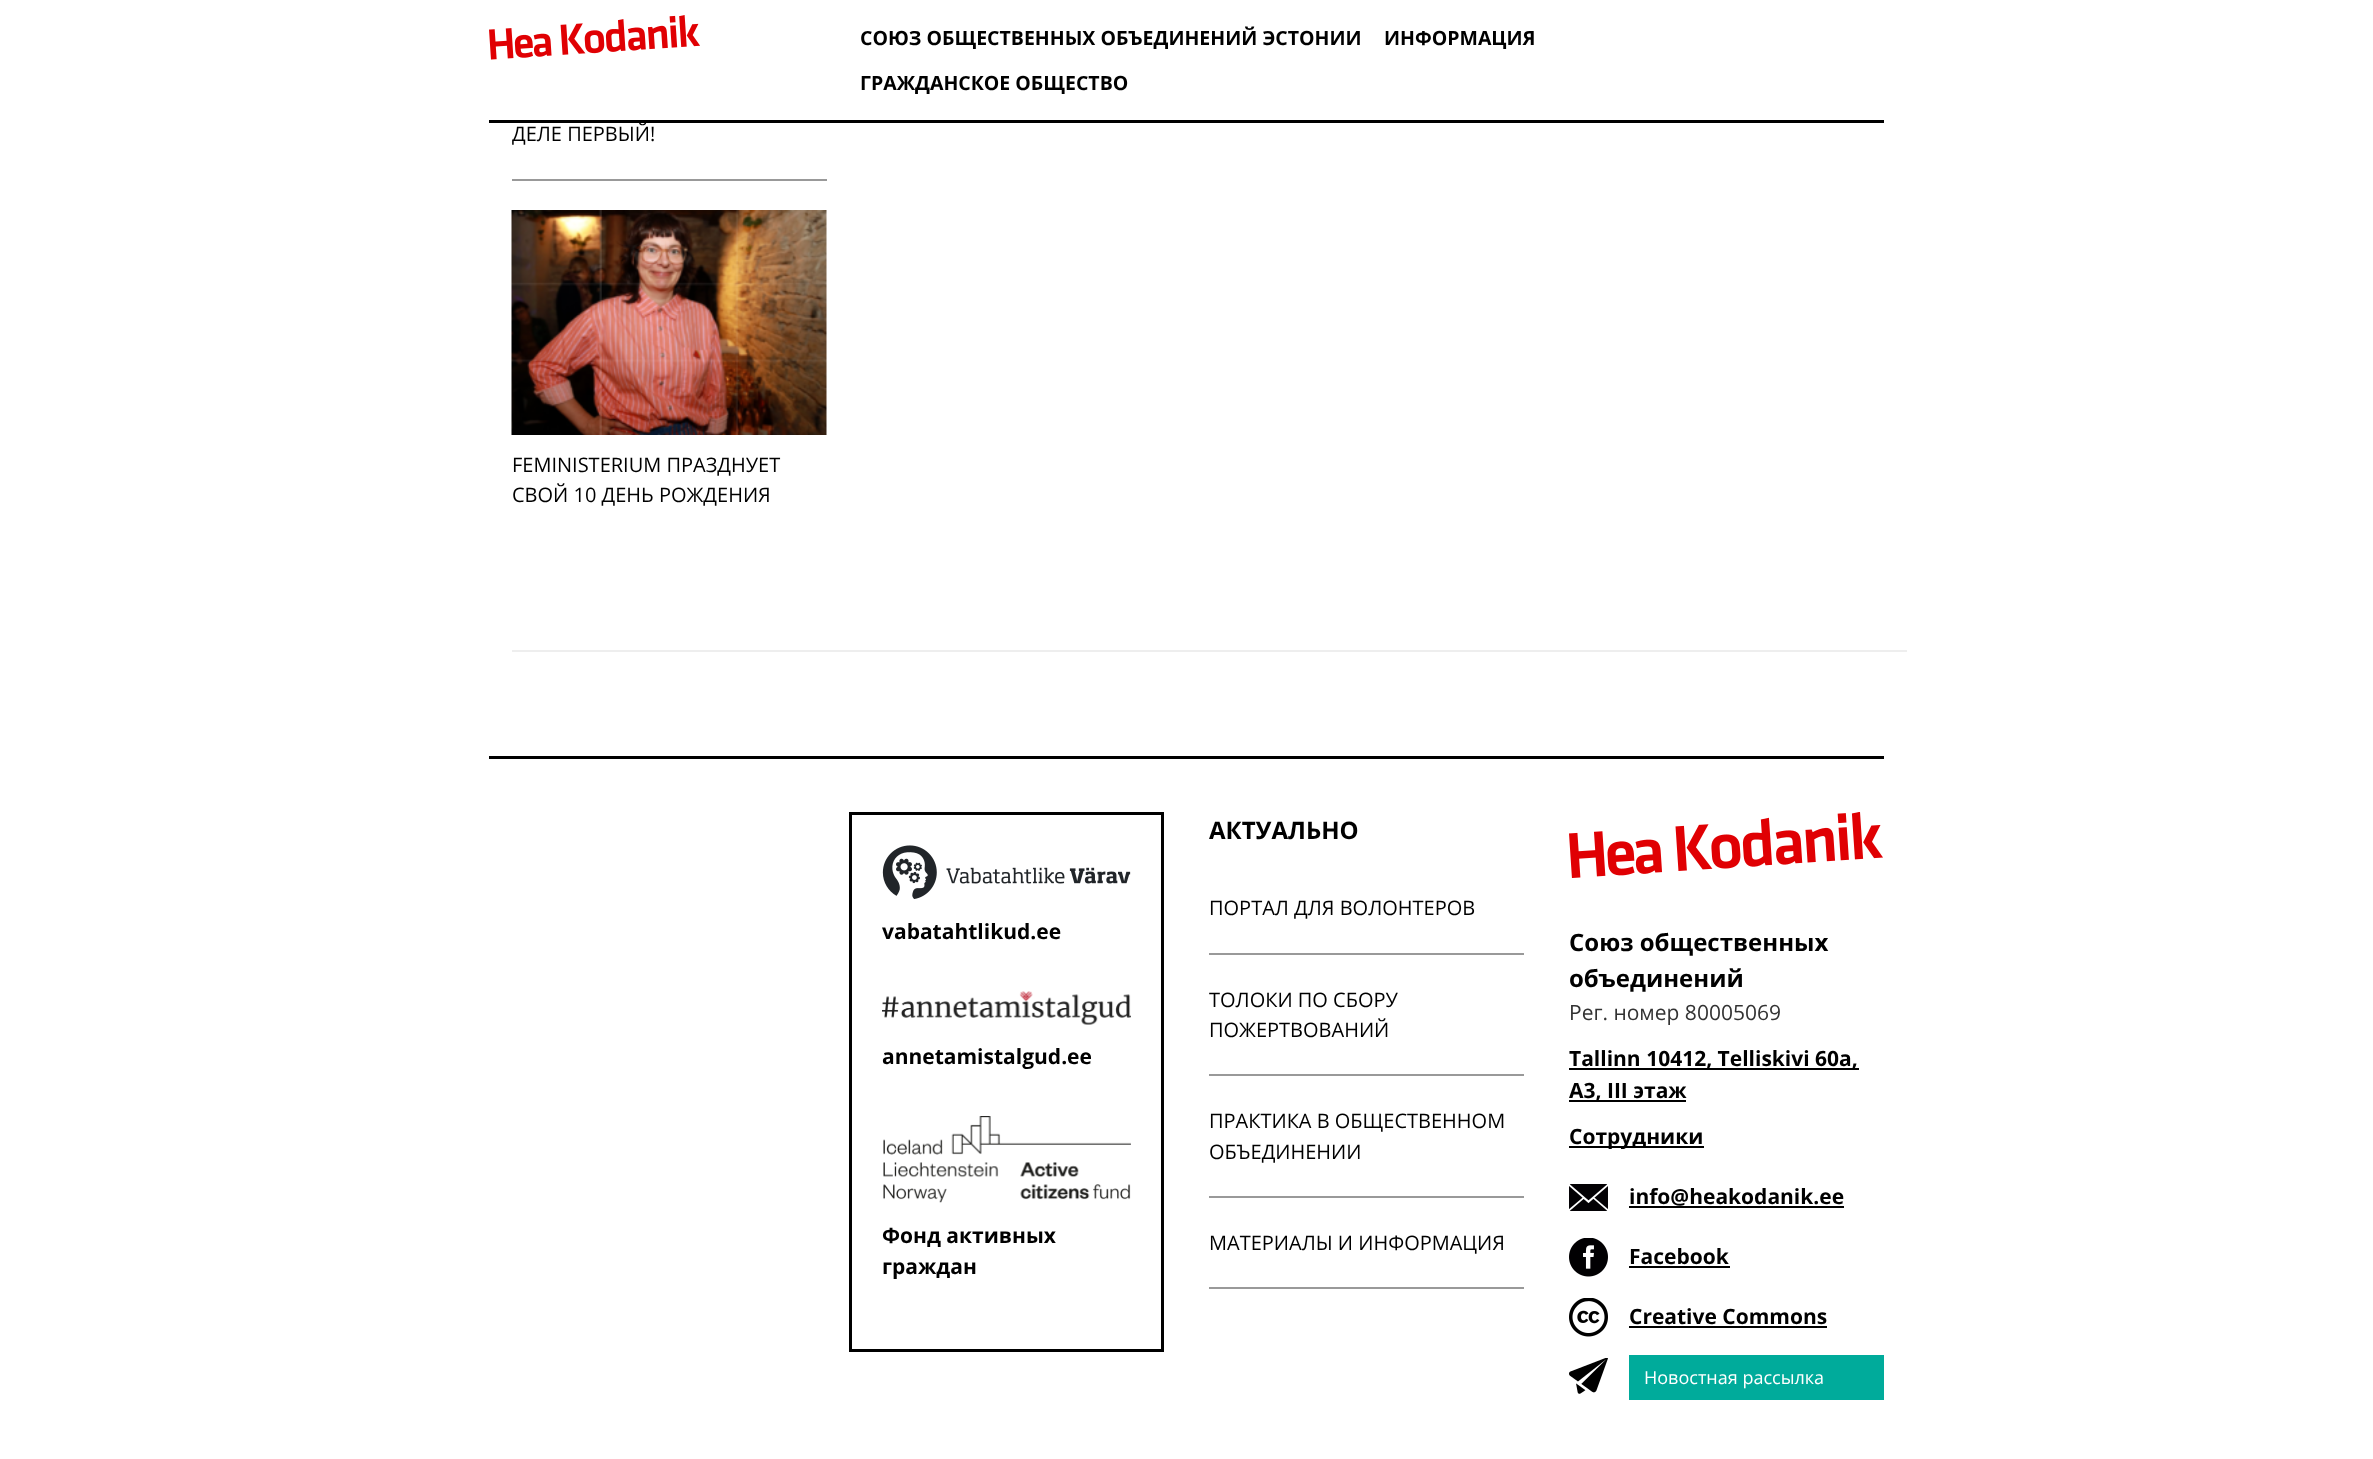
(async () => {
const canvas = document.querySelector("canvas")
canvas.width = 2373
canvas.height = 1459
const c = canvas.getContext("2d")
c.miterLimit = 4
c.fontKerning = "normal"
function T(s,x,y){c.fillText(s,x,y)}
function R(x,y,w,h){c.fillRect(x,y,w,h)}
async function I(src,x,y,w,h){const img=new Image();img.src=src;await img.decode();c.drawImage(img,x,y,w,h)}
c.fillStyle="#fff"
R(0,0,2373,1459)
c.fillStyle="#000"
R(489,120,1395,3)
await I("1.png",489,15,211,45)
c.font="bold 19.5px Open Sans"
T("СОЮЗ ОБЩЕСТВЕННЫХ ОБЪЕДИНЕНИЙ ЭСТОНИИ",860,45)
T("ИНФОРМАЦИЯ",1384,45)
T("ГРАЖДАНСКОE ОБЩЕСТВO",860,90)
c.fillStyle="#999"
R(512,179,315,2)
c.font="20px Open Sans"
c.fillStyle="#000"
T("ДЕЛЕ ПЕРВЫЙ!",512,141)
await I("2.png",511,210,316,225)
T("FEMINISTERIUM ПРАЗДНУЕТ",512,472)
T("СВОЙ 10 ДЕНЬ РОЖДЕНИЯ",512,502)
c.fillStyle="#eee"
R(512,650,1395,2)
c.fillStyle="#000"
R(489,756,1395,3)
c.strokeStyle="#000"
c.lineWidth=3
c.strokeRect(850.5,813.5,312,537)
await I("3.png",882,845,249,54)
c.font="bold 21px Open Sans"
T("vabatahtlikud.ee",882,939)
await I("4.png",882,991,249,34)
T("annetamistalgud.ee",882,1064)
await I("5.png",883,1116,248,87)
T("Фонд активных",882,1243)
T("граждан",882,1274)
c.font="bold 24px Open Sans"
T("АКТУАЛЬНО",1209,839)
c.fillStyle="#999"
R(1209,953,315,2)
c.font="20px Open Sans"
c.fillStyle="#000"
T("ПОРТАЛ ДЛЯ ВОЛОНТЕРОВ",1209,915)
c.fillStyle="#999"
R(1209,1074,315,2)
c.fillStyle="#000"
T("ТОЛОКИ ПО СБОРУ",1209,1007)
T("ПОЖЕРТВОВАНИЙ",1209,1037)
c.fillStyle="#999"
R(1209,1196,315,2)
c.fillStyle="#000"
T("ПРАКТИКА В ОБЩЕСТВЕННОМ",1209,1128)
T("ОБЪЕДИНЕНИИ",1209,1159)
c.fillStyle="#999"
R(1209,1287,315,2)
c.fillStyle="#000"
T("МАТЕРИАЛЫ И ИНФОРМАЦИЯ",1209,1250)
await I("6.png",1569,812,314,66)
c.font="bold 24px Open Sans"
T("Союз общественных",1569,951)
T("объединений",1569,987)
c.font="21px Open Sans"
c.fillStyle="#333"
T("Рег. номер 80005069",1569,1020)
c.fillStyle="#000"
R(1569,1068,290,2)
c.font="bold 21px Open Sans"
T("Tallinn 10412, Telliskivi 60a,",1569,1066)
R(1569,1100,117,2)
T("A3, III этаж",1569,1098)
R(1569,1146,135,2)
T("Сотрудники",1569,1144)
await I("7.png",1569,1184,39,27)
T("info@heakodanik.ee",1629,1204)
R(1629,1206,215,2)
await I("8.png",1569,1238,39,39)
T("Facebook",1629,1264)
R(1629,1266,101,2)
await I("9.png",1569,1298,39,39)
T("Creative Commons",1629,1324)
R(1629,1326,198,2)
await I("10.png",1569,1358,39,36)
c.fillStyle="#00ab9b"
R(1629,1355,255,45)
c.font="18px Open Sans"
c.fillStyle="#fff"
T("Новостная рассылка",1644,1384)
})()
